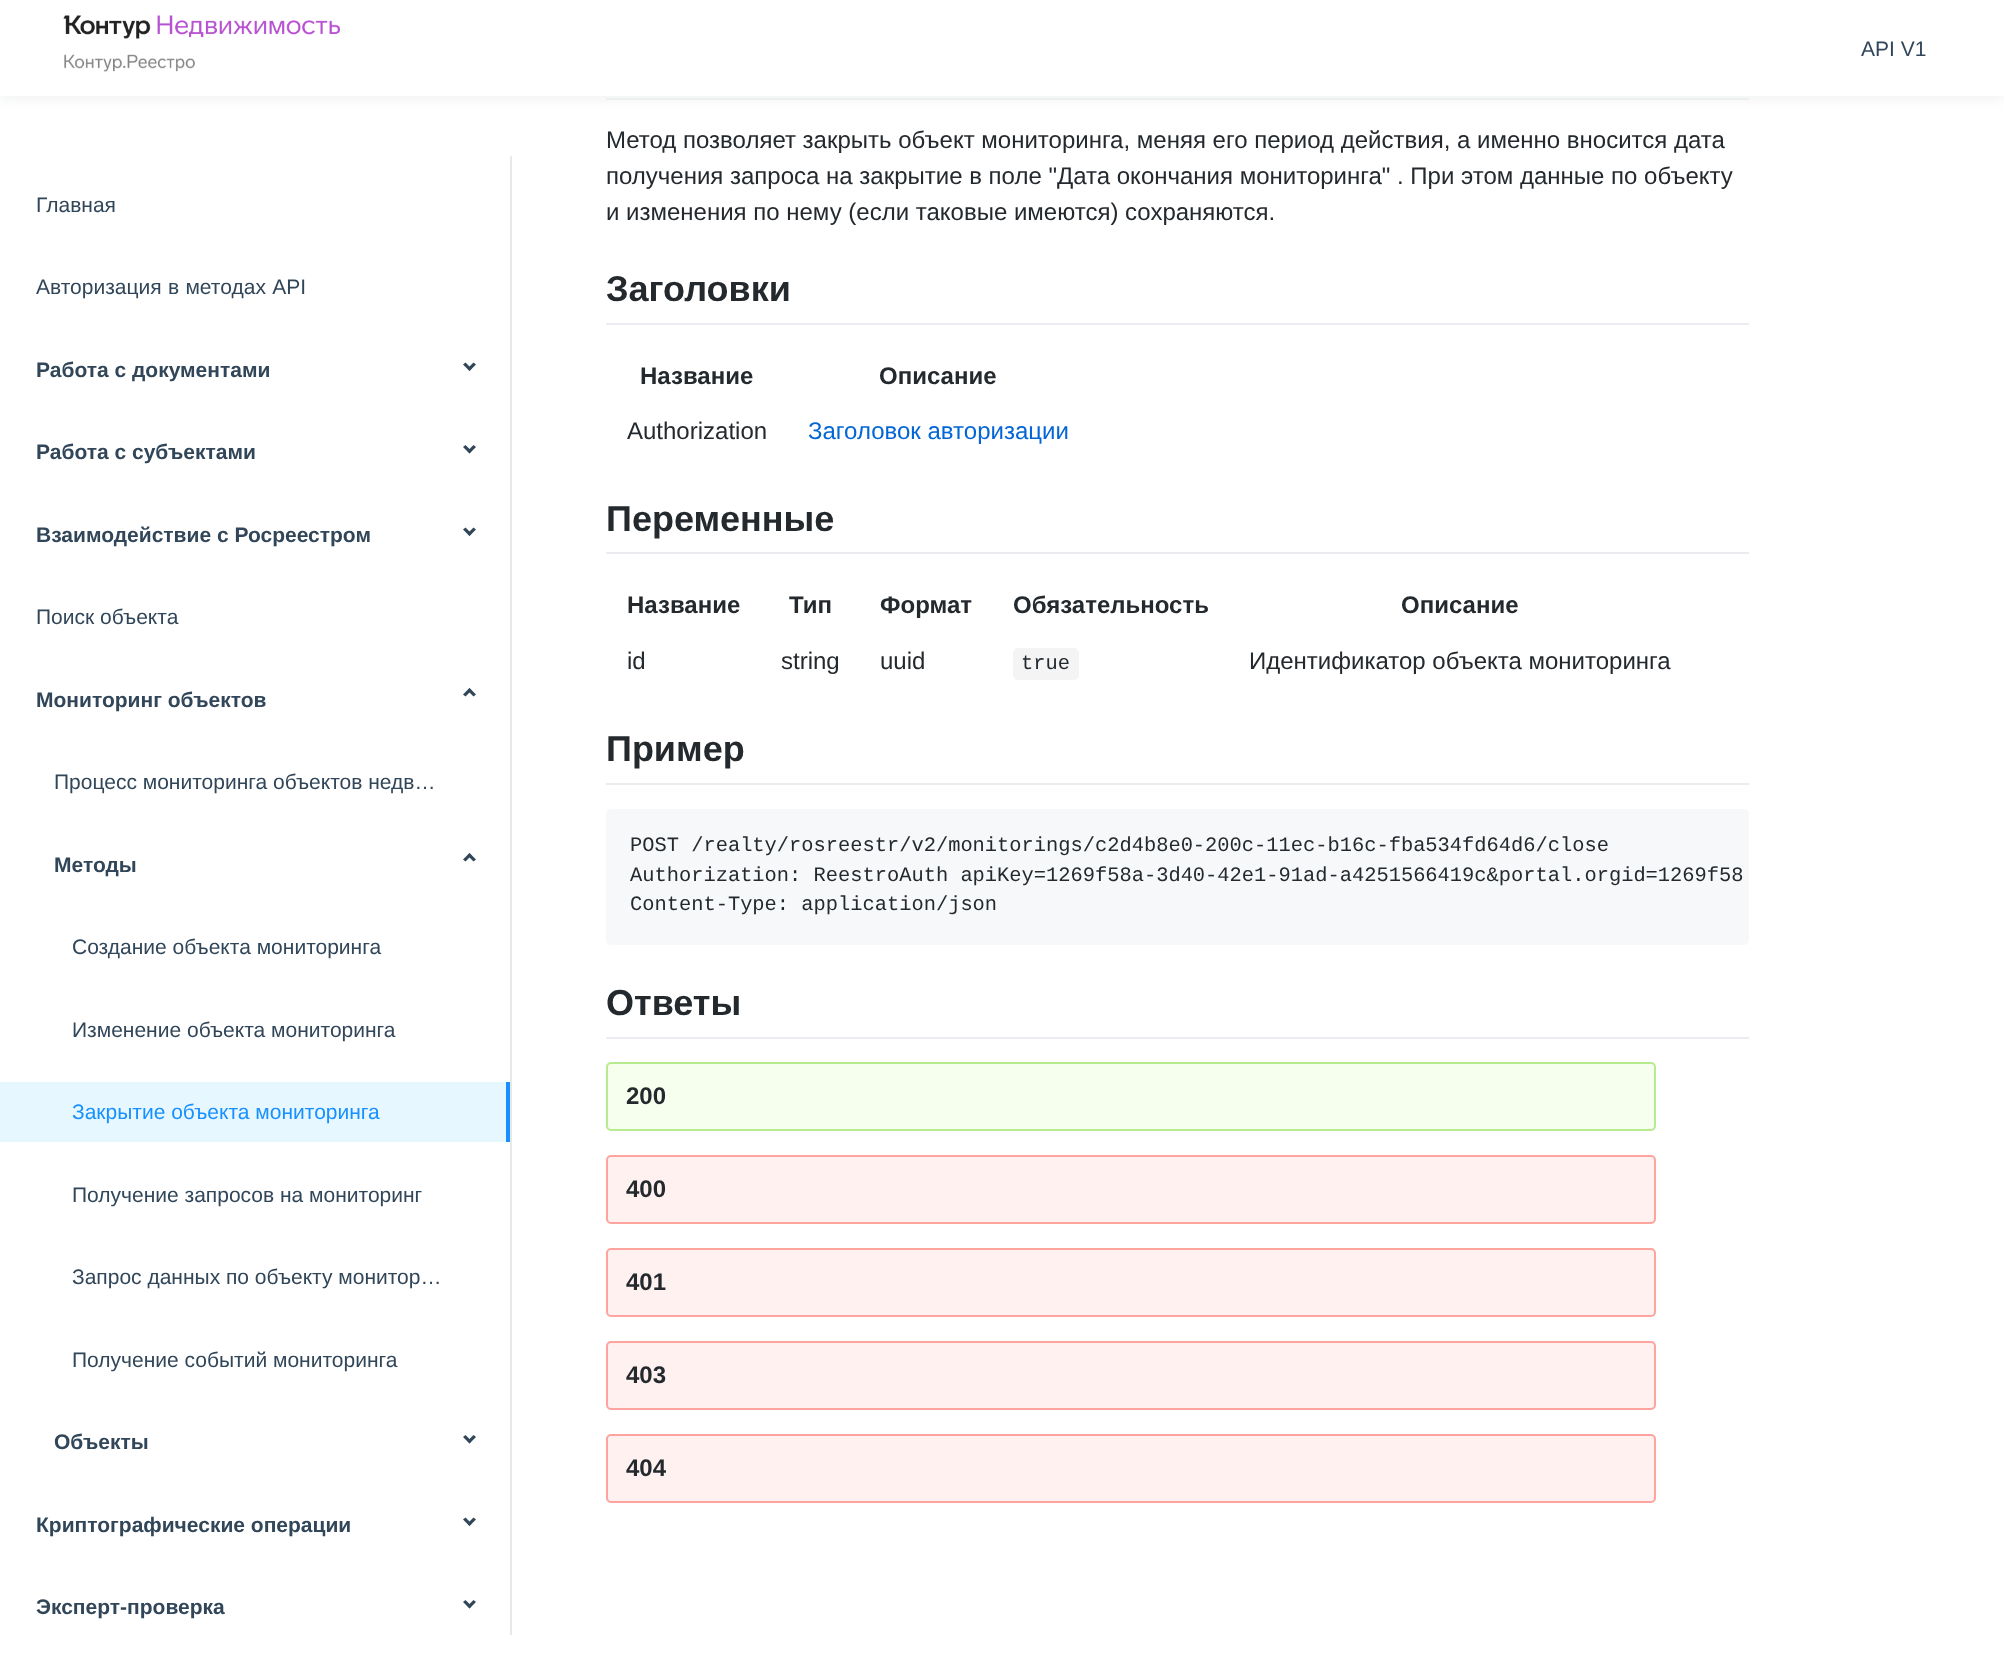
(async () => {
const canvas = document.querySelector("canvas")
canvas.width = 2004
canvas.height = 1655
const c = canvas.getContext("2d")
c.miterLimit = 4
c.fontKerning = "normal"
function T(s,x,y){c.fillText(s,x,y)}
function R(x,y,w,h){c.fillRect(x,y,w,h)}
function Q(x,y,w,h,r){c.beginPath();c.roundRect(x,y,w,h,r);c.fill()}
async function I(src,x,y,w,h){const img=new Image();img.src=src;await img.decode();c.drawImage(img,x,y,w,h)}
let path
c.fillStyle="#fff"
R(0,0,2004,1655)
c.fillStyle="#eaecef"
R(606,98,1143,2)
c.fillStyle="#f0f1f2"
c.filter="blur(6px)"
c.beginPath()
c.rect(0,3,2004,96)
c.fill()
c.filter="none"
c.fillStyle="#fff"
R(0,0,2004,96)
await I("1.png",63,15,277,57)
c.font="21px Liberation Sans"
c.fillStyle="#314659"
T("API V1",1861,56)
c.fillStyle="#e8e8e8"
R(510,156,2,1479)
c.fillStyle="#314659"
T("Главная",36,212)
c.wordSpacing="0.5px"
T("Авторизация в методах API",36,294)
c.wordSpacing="0px"
c.font="bold 21px Liberation Sans"
T("Работа с документами",36,377)
path = new Path2D("M473.5 362.5l2.5 2l-6.5 6.5l-2-2.5z")
c.fill(path)
path = new Path2D("M465.5 362.5l6 6l-2 2.5l-6.5-6.5z")
c.fill(path)
T("Работа с субъектами",36,459)
path = new Path2D("M473.5 445l2.5 2l-6.5 6.5l-2-2.5z")
c.fill(path)
path = new Path2D("M465.5 445l6 6l-2 2.5l-6.5-6.5z")
c.fill(path)
T("Взаимодействие с Росреестром",36,542)
path = new Path2D("M473.5 527.5l2.5 2l-6.5 6.5l-2-2.5z")
c.fill(path)
path = new Path2D("M465.5 527.5l6 6l-2 2.5l-6.5-6.5z")
c.fill(path)
c.font="21px Liberation Sans"
T("Поиск объекта",36,624)
c.font="bold 21px Liberation Sans"
T("Мониторинг объектов",36,707)
path = new Path2D("M465.5 696.5l-2.5-2l6.5-6.5l2 2.5z")
c.fill(path)
path = new Path2D("M473.5 696.5l-6-6l2-2.5l6.5 6.5z")
c.fill(path)
c.font="21px Liberation Sans"
T("Процесс мониторинга объектов недв…",54,789)
c.font="bold 21px Liberation Sans"
T("Методы",54,872)
path = new Path2D("M465.5 861.5l-2.5-2l6.5-6.5l2 2.5z")
c.fill(path)
path = new Path2D("M473.5 861.5l-6-6l2-2.5l6.5 6.5z")
c.fill(path)
c.font="21px Liberation Sans"
T("Создание объекта мониторинга",72,954)
T("Изменение объекта мониторинга",72,1037)
c.fillStyle="#e6f7ff"
R(0,1082,506,60)
c.fillStyle="#1890ff"
T("Закрытие объекта мониторинга",72,1119)
R(506,1082,4,60)
c.fillStyle="#314659"
T("Получение запросов на мониторинг",72,1202)
T("Запрос данных по объекту монитор…",72,1284)
T("Получение событий мониторинга",72,1367)
c.font="bold 21px Liberation Sans"
T("Объекты",54,1449)
path = new Path2D("M473.5 1435l2.5 2l-6.5 6.5l-2-2.5z")
c.fill(path)
path = new Path2D("M465.5 1435l6 6l-2 2.5l-6.5-6.5z")
c.fill(path)
T("Криптографические операции",36,1532)
path = new Path2D("M473.5 1517.5l2.5 2l-6.5 6.5l-2-2.5z")
c.fill(path)
path = new Path2D("M465.5 1517.5l6 6l-2 2.5l-6.5-6.5z")
c.fill(path)
T("Эксперт-проверка",36,1614)
path = new Path2D("M473.5 1600l2.5 2l-6.5 6.5l-2-2.5z")
c.fill(path)
path = new Path2D("M465.5 1600l6 6l-2 2.5l-6.5-6.5z")
c.fill(path)
c.font="24px Liberation Sans"
c.fillStyle="#24292e"
T("Метод позволяет закрыть объект мониторинга, меняя его период действия, а именно вносится дата",606,148)
T("получения запроса на закрытие в поле \"Дата окончания мониторинга\" . При этом данные по объекту",606,184)
T("и изменения по нему (если таковые имеются) сохраняются.",606,220)
c.fillStyle="#eaecef"
R(606,323,1143,2)
c.font="bold 36px Liberation Sans"
c.fillStyle="#24292e"
T("Заголовки",606,301)
c.font="bold 24px Liberation Sans"
T("Название",640,384)
T("Описание",879,384)
c.font="24px Liberation Sans"
T("Authorization",627,439)
c.fillStyle="#0366d6"
T("Заголовок авторизации",808,439)
c.fillStyle="#eaecef"
R(606,552,1143,2)
c.font="bold 36px Liberation Sans"
c.fillStyle="#24292e"
T("Переменные",606,531)
c.font="bold 24px Liberation Sans"
T("Название",627,613)
T("Тип",789,613)
T("Формат",880,613)
T("Обязательность",1013,613)
T("Описание",1401,613)
c.font="24px Liberation Sans"
T("id",627,669)
T("string",781,669)
T("uuid",880,669)
c.fillStyle="#f4f4f4"
Q(1013,648,66,32,5)
c.font="20.4px Liberation Mono"
c.fillStyle="#24292e"
T("true",1021,669)
c.font="24px Liberation Sans"
T("Идентификатор объекта мониторинга",1249,669)
c.fillStyle="#eaecef"
R(606,783,1143,2)
c.font="bold 36px Liberation Sans"
c.fillStyle="#24292e"
T("Пример",606,761)
c.fillStyle="#f6f8fa"
Q(606,809,1143,136,5)
c.font="20.4px Liberation Mono"
c.fillStyle="#24292e"
T("POST /realty/rosreestr/v2/monitorings/c2d4b8e0-200c-11ec-b16c-fba534fd64d6/close",630,851)
T("Authorization: ReestroAuth apiKey=1269f58a-3d40-42e1-91ad-a4251566419c&portal.orgid=1269f58",630,881)
T("Content-Type: application/json",630,910)
c.fillStyle="#eaecef"
R(606,1037,1143,2)
c.font="bold 36px Liberation Sans"
c.fillStyle="#24292e"
T("Ответы",606,1015)
c.fillStyle="#f6ffed"
c.beginPath()
c.roundRect(607,1063,1048,67,4)
c.fill()
c.strokeStyle="#b7eb8f"
c.lineWidth=2
c.stroke()
c.font="bold 24px Liberation Sans"
c.fillStyle="#24292e"
T("200",626,1104)
c.fillStyle="#fff1f0"
c.beginPath()
c.roundRect(607,1156,1048,67,4)
c.fill()
c.strokeStyle="#ffa39e"
c.stroke()
c.fillStyle="#24292e"
T("400",626,1197)
c.fillStyle="#fff1f0"
c.beginPath()
c.roundRect(607,1249,1048,67,4)
c.fill()
c.stroke()
c.fillStyle="#24292e"
T("401",626,1290)
c.fillStyle="#fff1f0"
c.beginPath()
c.roundRect(607,1342,1048,67,4)
c.fill()
c.stroke()
c.fillStyle="#24292e"
T("403",626,1383)
c.fillStyle="#fff1f0"
c.beginPath()
c.roundRect(607,1435,1048,67,4)
c.fill()
c.stroke()
c.fillStyle="#24292e"
T("404",626,1476)
})()
